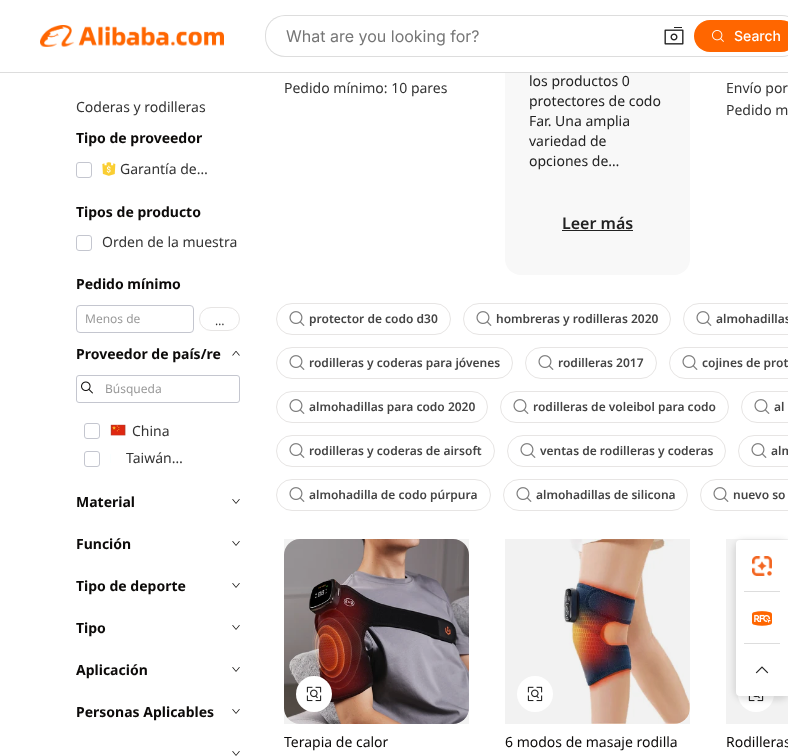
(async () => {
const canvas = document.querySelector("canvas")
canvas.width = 788
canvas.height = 756
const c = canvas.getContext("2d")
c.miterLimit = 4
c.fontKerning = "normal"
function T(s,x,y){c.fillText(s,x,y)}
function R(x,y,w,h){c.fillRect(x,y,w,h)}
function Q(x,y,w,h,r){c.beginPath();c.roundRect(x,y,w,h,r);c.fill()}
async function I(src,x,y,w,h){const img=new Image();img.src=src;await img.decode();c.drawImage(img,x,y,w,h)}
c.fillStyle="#fff"
R(0,0,788,756)
c.fillStyle="#f8f8f8"
Q(505,-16,185,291,16)
c.fillStyle="#fff"
R(505,0,185,72)
c.fillStyle="#ddd"
R(0,72,788,1)
await I("1.png",40,25,184,22)
Q(265,15,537,42,20)
c.fillStyle="#fff"
Q(266,16,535,40,19)
c.font="16px Inter"
c.fillStyle="#767676"
T("What are you looking for?",286,42)
await I("2.png",664,27,20,18)
c.fillStyle="#f60"
Q(694,20,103,32,16)
await I("3.png",712,30,12,12)
c.font="500 14px Inter"
c.fillStyle="#fff"
T("Search",734,41)
c.font="14px Noto Sans"
c.fillStyle="#333"
T("Coderas y rodilleras",76,112)
c.font="bold 14px Noto Sans"
c.fillStyle="#0c0a09"
T("Tipo de proveedor",76,143)
c.beginPath()
c.roundRect(76.5,162.5,15,15,2.5)
c.strokeStyle="#c4c6cf"
c.stroke()
await I("4.png",102,162,14,14)
c.font="14px Noto Sans"
c.fillStyle="#333"
T("Garantía de…",120,174)
c.font="bold 14px Noto Sans"
c.fillStyle="#0c0a09"
T("Tipos de producto",76,217)
c.beginPath()
c.roundRect(76.5,235.5,15,15,2.5)
c.stroke()
c.font="14px Noto Sans"
c.fillStyle="#333"
T("Orden de la muestra",102,247)
c.font="bold 14px Noto Sans"
c.fillStyle="#0c0a09"
T("Pedido mínimo",76,289)
c.beginPath()
c.roundRect(76.5,305.5,117,27,3.5)
c.stroke()
c.font="12px Noto Sans"
c.fillStyle="#999"
T("Menos de",85,323)
c.beginPath()
c.roundRect(199.5,307.5,40,23,11.5)
c.strokeStyle="#e7e5e4"
c.stroke()
c.fillStyle="#333"
T("…",215,325)
c.font="bold 14px Noto Sans"
c.fillStyle="#0c0a09"
T("Proveedor de país/re",76,359)
await I("5.png",232,351,8,5)
c.beginPath()
c.roundRect(76.5,375.5,163,27,2.5)
c.strokeStyle="#c4c6cf"
c.stroke()
await I("6.png",81,381,12,13)
c.font="12px Noto Sans"
c.fillStyle="#999"
T("Búsqueda",105,393)
c.beginPath()
c.roundRect(84.5,423.5,15,15,2.5)
c.stroke()
await I("7.png",110,424,16,12)
c.font="14px Noto Sans"
c.fillStyle="#333"
T("China",132,436)
c.beginPath()
c.roundRect(84.5,451.5,15,15,2.5)
c.stroke()
c.fillStyle="#faffff"
R(110,454,1,9)
c.fillStyle="#333"
T("Taiwán…",126,463)
c.font="bold 14px Noto Sans"
c.fillStyle="#0c0a09"
T("Material",76,507)
await I("8.png",232,499,8,5)
T("Función",76,549)
await I("8.png",232,541,8,5)
T("Tipo de deporte",76,591)
await I("8.png",232,583,8,5)
T("Tipo",76,633)
await I("8.png",232,625,8,5)
T("Aplicación",76,675)
await I("8.png",232,667,8,5)
T("Personas Aplicables",76,717)
await I("8.png",232,709,8,5)
await I("8.png",232,751,8,5)
c.font="14px Noto Sans"
c.fillStyle="#333"
T("Pedido mínimo: 10 pares",284,93)
c.fillStyle="#222"
T("los productos 0",529,86)
T("protectores de codo",529,106)
T("Far. Una amplia",529,126)
T("variedad de",529,146)
T("opciones de…",529,166)
c.font="600 16px Noto Sans"
T("Leer más",562,229)
R(562,230,71,1)
c.font="14px Noto Sans"
c.fillStyle="#333"
T("Envío por",726,93)
T("Pedido m",726,115)
c.beginPath()
c.roundRect(276.5,303.5,174,31,15.5)
c.strokeStyle="#e7e5e4"
c.stroke()
await I("9.png",289,311,16,15)
c.font="600 12px Noto Sans"
c.fillStyle="#444"
T("protector de codo d30",309,323)
c.beginPath()
c.roundRect(463.5,303.5,207,31,15.5)
c.stroke()
await I("9.png",476,311,16,15)
T("hombreras y rodilleras 2020",496,323)
c.beginPath()
c.roundRect(683.5,303.5,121,31,15.5)
c.stroke()
await I("9.png",696,311,16,15)
T("almohadillas",716,323)
c.beginPath()
c.roundRect(276.5,347.5,236,31,15.5)
c.stroke()
await I("9.png",289,355,16,15)
T("rodilleras y coderas para jóvenes",309,367)
c.beginPath()
c.roundRect(525.5,347.5,131,31,15.5)
c.stroke()
await I("9.png",538,355,16,15)
T("rodilleras 2017",558,367)
c.beginPath()
c.roundRect(669.5,347.5,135,31,15.5)
c.stroke()
await I("9.png",682,355,16,15)
T("cojines de prot",702,367)
c.beginPath()
c.roundRect(276.5,391.5,211,31,15.5)
c.stroke()
await I("9.png",289,399,16,15)
T("almohadillas para codo 2020",309,411)
c.beginPath()
c.roundRect(500.5,391.5,228,31,15.5)
c.stroke()
await I("9.png",513,399,16,15)
T("rodilleras de voleibol para codo",533,411)
c.beginPath()
c.roundRect(741.5,391.5,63,31,15.5)
c.stroke()
await I("9.png",754,399,16,15)
T("al",774,411)
c.beginPath()
c.roundRect(276.5,435.5,218,31,15.5)
c.stroke()
await I("9.png",289,443,16,15)
T("rodilleras y coderas de airsoft",309,455)
c.beginPath()
c.roundRect(507.5,435.5,218,31,15.5)
c.stroke()
await I("9.png",520,443,16,15)
T("ventas de rodilleras y coderas",540,455)
c.beginPath()
c.roundRect(738.5,435.5,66,31,15.5)
c.stroke()
await I("9.png",751,443,16,15)
T("alm",771,455)
c.beginPath()
c.roundRect(276.5,479.5,214,31,15.5)
c.stroke()
await I("9.png",289,487,16,15)
T("almohadilla de codo púrpura",309,499)
c.beginPath()
c.roundRect(503.5,479.5,184,31,15.5)
c.stroke()
await I("9.png",516,487,16,15)
T("almohadillas de silicona",536,499)
c.beginPath()
c.roundRect(700.5,479.5,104,31,15.5)
c.stroke()
await I("9.png",713,487,16,15)
T("nuevo so",733,499)
await I("10.png",284,539,185,185)
c.fillStyle="#0000000d"
R(284,539,185,185)
c.fillStyle="#fff"
c.beginPath()
c.arc(314,694,18,0,7)
c.fill()
await I("11.png",306,686,16,16)
c.font="14px Noto Sans"
c.fillStyle="#0c0a09"
T("Terapia de calor",284,747)
await I("12.png",563,539,127,185)
c.fillStyle="#0000000d"
R(505,539,185,185)
c.fillStyle="#fff"
c.beginPath()
c.arc(535,694,18,0,7)
c.fill()
await I("11.png",527,686,16,16)
c.fillStyle="#0c0a09"
T("6 modos de masaje rodilla",505,747)
c.fillStyle="#0000000d"
R(726,539,62,185)
c.fillStyle="#fff"
c.beginPath()
c.arc(756,694,18,0,7)
c.fill()
await I("13.png",748,696,16,6)
c.fillStyle="#0c0a09"
T("Rodilleras",726,747)
c.fillStyle="#0000001f"
c.filter="blur(3px)"
c.beginPath()
c.roundRect(734,540,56,160,10)
c.fill()
c.filter="none"
c.fillStyle="#fff"
c.beginPath()
c.roundRect(736,540,52,156,[8,0,0,8])
c.fill()
Q(736,540,52,52,4)
await I("14.png",752,556,20,20)
c.fillStyle="#ddd"
R(744,591,36,1)
await I("15.png",752,611,20,15)
R(744,643,36,1)
c.fillStyle="#fff"
Q(736,644,52,52,4)
await I("16.png",755,666,14,8)
})()
